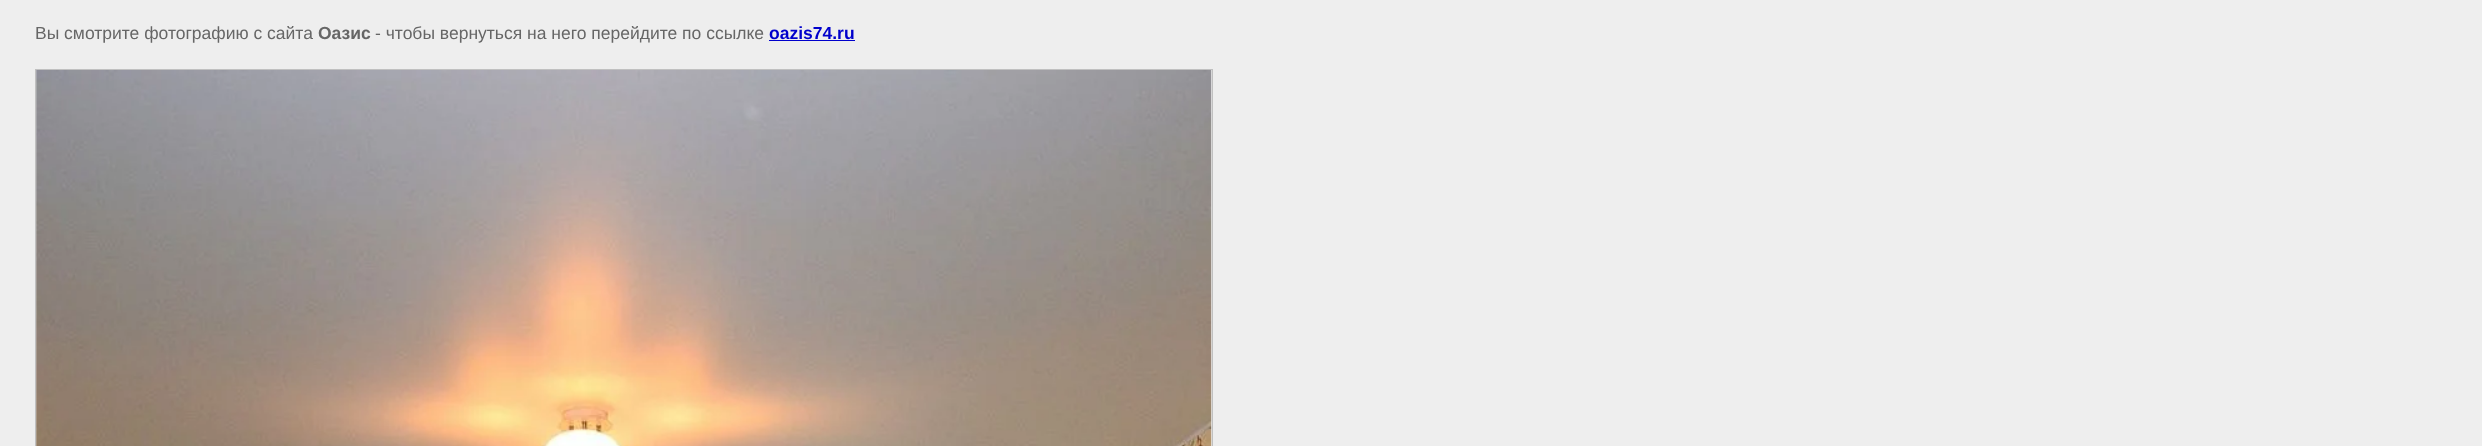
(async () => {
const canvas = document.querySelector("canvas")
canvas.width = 2482
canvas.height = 446
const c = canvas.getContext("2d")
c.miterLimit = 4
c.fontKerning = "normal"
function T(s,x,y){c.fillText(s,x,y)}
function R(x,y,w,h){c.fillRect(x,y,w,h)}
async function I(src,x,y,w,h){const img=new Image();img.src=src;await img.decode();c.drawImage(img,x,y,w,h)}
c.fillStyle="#eee"
R(0,0,2482,446)
c.font="17.5px Liberation Sans"
c.fillStyle="#666"
T("Вы смотрите фотографию с сайта",35,39)
c.font="bold 17.5px Liberation Sans"
T("Оазис",318,39)
c.font="17.5px Liberation Sans"
T("- чтобы вернуться на него перейдите по ссылке",375,39)
c.font="bold 17.5px Liberation Sans"
c.fillStyle="#00c"
T("oazis74.ru",769,39)
R(769,40,86,1)
c.strokeStyle="#c0c0c0"
c.strokeRect(35.5,69.5,1177,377)
await I("1.png",36,70,1176,376)
})()
